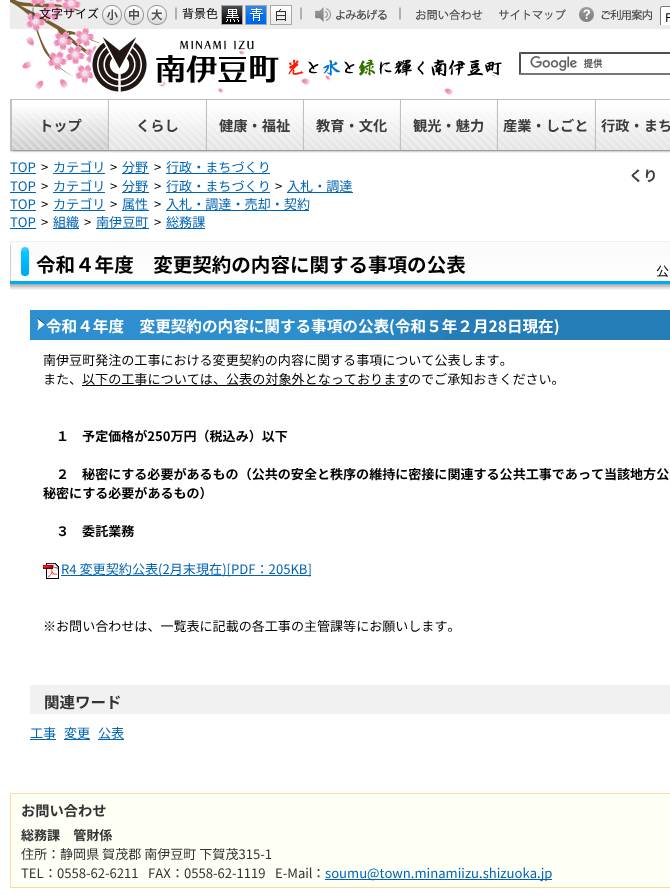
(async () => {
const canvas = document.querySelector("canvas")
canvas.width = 670
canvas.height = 895
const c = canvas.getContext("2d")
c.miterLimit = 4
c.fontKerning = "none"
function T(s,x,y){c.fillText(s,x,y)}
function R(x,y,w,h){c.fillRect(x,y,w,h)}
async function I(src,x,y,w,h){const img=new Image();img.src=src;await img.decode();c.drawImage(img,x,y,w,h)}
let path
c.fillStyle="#fff"
R(0,0,670,895)
c.fillStyle="#ececec"
R(10,0,660,29)
await I("1.png",10,0,79,29)
c.font="12px Noto Sans JP"
c.fillStyle="#000"
T("｜文字サイズ",27,18)
await I("2.png",102,5,20,20)
await I("3.png",124,5,20,20)
await I("4.png",147,5,20,20)
T("｜背景色",170,18)
await I("5.png",221,5,22,20)
await I("6.png",245,5,22,20)
await I("7.png",270,5,22,20)
T("｜",295,18)
await I("8.png",315,7,72,15)
T("｜",394,18)
await I("9.png",416,9,67,11)
await I("10.png",499,9,67,11)
await I("11.png",579,7,73,15)
c.fillStyle="#fff"
path = new Path2D("M662 6h8c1 0 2 1 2 2v17h-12v-17c0-1 1-2 2-2z")
c.fill(path)
c.save()
c.beginPath()
c.rect(659,5,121,20)
c.clip()
c.beginPath()
c.roundRect(660.5,6.5,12,20,1.5)
c.strokeStyle="#767676"
c.stroke()
c.restore()
c.fillStyle="#000"
T("F",665,22)
await I("12.png",22,29,480,66)
await I("13.png",530,56,73,15)
c.fillStyle="#4f4f4f"
path = new Path2D("M519 52h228l-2 2h-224z")
c.fill(path)
c.fillStyle="#767676"
path = new Path2D("M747 75h-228l2-2h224z")
c.fill(path)
c.fillStyle="#4f4f4f"
path = new Path2D("M519 75v-23l2 2v19z")
c.fill(path)
c.save()
c.beginPath()
c.rect(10,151,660,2)
c.clip()
c.fillStyle="#0000001a"
c.filter="blur(1px)"
c.beginPath()
c.rect(11,100,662,52)
c.fill()
c.filter="none"
c.restore()
c.strokeStyle="#c1c1c1"
c.strokeRect(10.5,99.5,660,51)
c.save()
c.beginPath()
c.rect(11,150,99,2)
c.clip()
c.fillStyle="#0000004d"
c.filter="blur(1px)"
c.beginPath()
c.rect(12,101,97,50)
c.fill()
c.filter="none"
c.restore()
await I("14.png",12,107,96,43)
c.fillStyle="#c1c1c1"
R(11,100,1,50)
c.font="bold 14.25px Noto Sans JP"
c.fillStyle="#3c3c3c"
T("トップ",39,131)
c.fillStyle="#0000004d"
c.filter="blur(1px)"
c.beginPath()
c.rect(109,101,98,50)
c.fill()
c.filter="none"
await I("15.png",109,100,97,50)
c.fillStyle="#c1c1c1"
R(108,100,1,50)
c.fillStyle="#3c3c3c"
T("くらし",136,131)
c.fillStyle="#0000004d"
c.filter="blur(1px)"
c.beginPath()
c.rect(207,101,97,50)
c.fill()
c.filter="none"
await I("16.png",207,100,96,50)
c.fillStyle="#c1c1c1"
R(206,100,1,50)
c.fillStyle="#3c3c3c"
T("健康・福祉",219,131)
c.fillStyle="#0000004d"
c.filter="blur(1px)"
c.beginPath()
c.rect(304,101,97,50)
c.fill()
c.filter="none"
await I("16.png",304,100,96,50)
c.fillStyle="#c1c1c1"
R(303,100,1,50)
c.fillStyle="#3c3c3c"
T("教育・文化",316,131)
c.fillStyle="#0000004d"
c.filter="blur(1px)"
c.beginPath()
c.rect(401,101,97,50)
c.fill()
c.filter="none"
await I("16.png",401,100,96,50)
c.fillStyle="#c1c1c1"
R(400,100,1,50)
c.fillStyle="#3c3c3c"
T("観光・魅力",413,131)
c.fillStyle="#0000004d"
c.filter="blur(1px)"
c.beginPath()
c.rect(498,101,98,50)
c.fill()
c.filter="none"
await I("15.png",498,100,97,50)
c.fillStyle="#c1c1c1"
R(497,100,1,50)
c.fillStyle="#3c3c3c"
T("産業・しごと",503,131)
c.fillStyle="#0000004d"
c.filter="blur(1px)"
c.beginPath()
c.rect(596,101,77,50)
c.fill()
c.filter="none"
await I("17.png",596,100,74,50)
c.fillStyle="#c1c1c1"
R(595,100,1,50)
c.fillStyle="#3c3c3c"
T("行政・まち",601,131)
T("くり",629,181)
c.font="13.1px Noto Sans JP"
c.fillStyle="#0064b5"
T("TOP",10,172)
R(10,173,26,1)
c.font="13.05px Noto Sans JP"
c.fillStyle="#000"
T(">",41,172)
c.font="13.1px Noto Sans JP"
c.fillStyle="#0064b5"
T("カテゴリ",53,172)
R(53,173,52,1)
c.font="13.05px Noto Sans JP"
c.fillStyle="#000"
T(">",110,172)
c.fillStyle="#0064b5"
R(122,173,27,1)
c.font="13.1px Noto Sans JP"
T("分野",122,172)
c.font="13.05px Noto Sans JP"
c.fillStyle="#000"
T(">",154,172)
c.fillStyle="#0064b5"
R(166,173,104,1)
c.font="13.1px Noto Sans JP"
T("行政・まちづくり",166,172)
T("TOP",10,191)
R(10,192,26,1)
c.font="13.05px Noto Sans JP"
c.fillStyle="#000"
T(">",41,191)
c.font="13.1px Noto Sans JP"
c.fillStyle="#0064b5"
T("カテゴリ",53,191)
R(53,192,52,1)
c.font="13.05px Noto Sans JP"
c.fillStyle="#000"
T(">",110,191)
c.fillStyle="#0064b5"
R(122,192,27,1)
c.font="13.1px Noto Sans JP"
T("分野",122,191)
c.font="13.05px Noto Sans JP"
c.fillStyle="#000"
T(">",154,191)
c.fillStyle="#0064b5"
R(166,192,104,1)
c.font="13.1px Noto Sans JP"
T("行政・まちづくり",166,191)
c.font="13.05px Noto Sans JP"
c.fillStyle="#000"
T(">",275,191)
c.fillStyle="#0064b5"
R(287,192,66,1)
c.font="13.1px Noto Sans JP"
T("入札・調達",287,191)
T("TOP",10,209)
R(10,210,26,1)
c.font="13.05px Noto Sans JP"
c.fillStyle="#000"
T(">",41,209)
c.font="13.1px Noto Sans JP"
c.fillStyle="#0064b5"
T("カテゴリ",53,209)
R(53,210,52,1)
c.font="13.05px Noto Sans JP"
c.fillStyle="#000"
T(">",110,209)
c.fillStyle="#0064b5"
R(122,210,27,1)
c.font="13.1px Noto Sans JP"
T("属性",122,209)
c.font="13.05px Noto Sans JP"
c.fillStyle="#000"
T(">",154,209)
c.fillStyle="#0064b5"
R(166,210,143,1)
c.font="13.1px Noto Sans JP"
T("入札・調達・売却・契約",166,209)
T("TOP",10,227)
R(10,228,26,1)
c.font="13.05px Noto Sans JP"
c.fillStyle="#000"
T(">",41,227)
c.fillStyle="#0064b5"
R(53,228,26,1)
c.font="13.1px Noto Sans JP"
T("組織",53,227)
c.font="13.05px Noto Sans JP"
c.fillStyle="#000"
T(">",84,227)
c.fillStyle="#0064b5"
R(96,228,53,1)
c.font="13.1px Noto Sans JP"
T("南伊豆町",96,227)
c.font="13.05px Noto Sans JP"
c.fillStyle="#000"
T(">",154,227)
c.fillStyle="#0064b5"
R(166,228,39,1)
c.font="13.1px Noto Sans JP"
T("総務課",166,227)
await I("18.png",10,241,660,49)
await I("19.png",10,241,660,49)
await I("20.png",10,242,19,40)
await I("21.png",10,242,1,40)
c.font="bold 19.55px Noto Sans JP"
c.fillStyle="#000"
T("令和４年度　変更契約の内容に関する事項の公表",36,272)
c.font="13px Noto Sans JP"
T("公",656,276)
c.fillStyle="#257db7"
R(445,310,225,30)
await I("22.png",30,310,415,30)
c.font="bold 15.6px Noto Sans JP"
c.fillStyle="#fff"
T("令和４年度　変更契約の内容に関する事項の公表(令和５年２月28日現在)",46,332)
c.font="13.05px Noto Sans JP"
c.fillStyle="#000"
T("南伊豆町発注の工事における変更契約の内容に関する事項について公表します。",43,365)
T("また、",43,384)
R(82,385,326,1)
c.font="13.1px Noto Sans JP"
T("以下の工事については、公表の対象外となっております",82,384)
c.font="13.05px Noto Sans JP"
T("のでご承知おきください。",408,384)
c.font="bold 13.05px Noto Sans JP"
T("１　予定価格が250万円（税込み）以下",56,441)
T("２　秘密にする必要があるもの（公共の安全と秩序の維持に密接に関連する公共工事であって当該地方公",56,479)
T("秘密にする必要があるもの）",43,498)
T("３　委託業務",56,536)
await I("23.png",43,563,16,16)
c.fillStyle="#0064b5"
R(61,575,250,1)
c.font="13.1px Noto Sans JP"
T("R4 変更契約公表(2月末現在)[PDF：205KB]",61,574)
c.font="13.05px Noto Sans JP"
c.fillStyle="#000"
T("※お問い合わせは、一覧表に記載の各工事の主管課等にお願いします。",43,631)
c.fillStyle="#f1f1f1"
R(30,685,640,29)
c.font="bold 15.5px Noto Sans JP"
c.fillStyle="#333"
T("関連ワード",44,708)
c.fillStyle="#0064b5"
R(30,739,26,1)
c.font="13.1px Noto Sans JP"
T("工事",30,738)
R(64,739,26,1)
T("変更",64,738)
R(98,739,26,1)
T("公表",98,738)
c.fillStyle="#fefff5"
c.beginPath()
c.rect(10.5,793.5,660,94)
c.fill()
c.strokeStyle="#ffd996"
c.stroke()
c.font="bold 14.25px Noto Sans JP"
c.fillStyle="#333"
T("お問い合わせ",21,816)
c.font="bold 13.05px Noto Sans JP"
T("総務課　管財係",21,840)
c.font="13.1px Noto Sans JP"
T("住所",21,859)
c.font="13.05px Noto Sans JP"
T("：静岡県 賀茂郡 南伊豆町 下賀茂315-1",47,859)
c.font="13.1px Noto Sans JP"
T("TEL",21,878)
c.font="13.05px Noto Sans JP"
T("：0558-62-6211",44,878)
c.font="13.1px Noto Sans JP"
T("FAX",148,878)
c.font="13.05px Noto Sans JP"
T("：0558-62-1119",171,878)
c.font="13.1px Noto Sans JP"
T("E-Mail",275,878)
c.font="13.05px Noto Sans JP"
T("：",312,878)
c.fillStyle="#0064b5"
R(325,879,227,1)
c.font="13.1px Noto Sans JP"
T("soumu@town.minamiizu.shizuoka.jp",325,878)
})()
